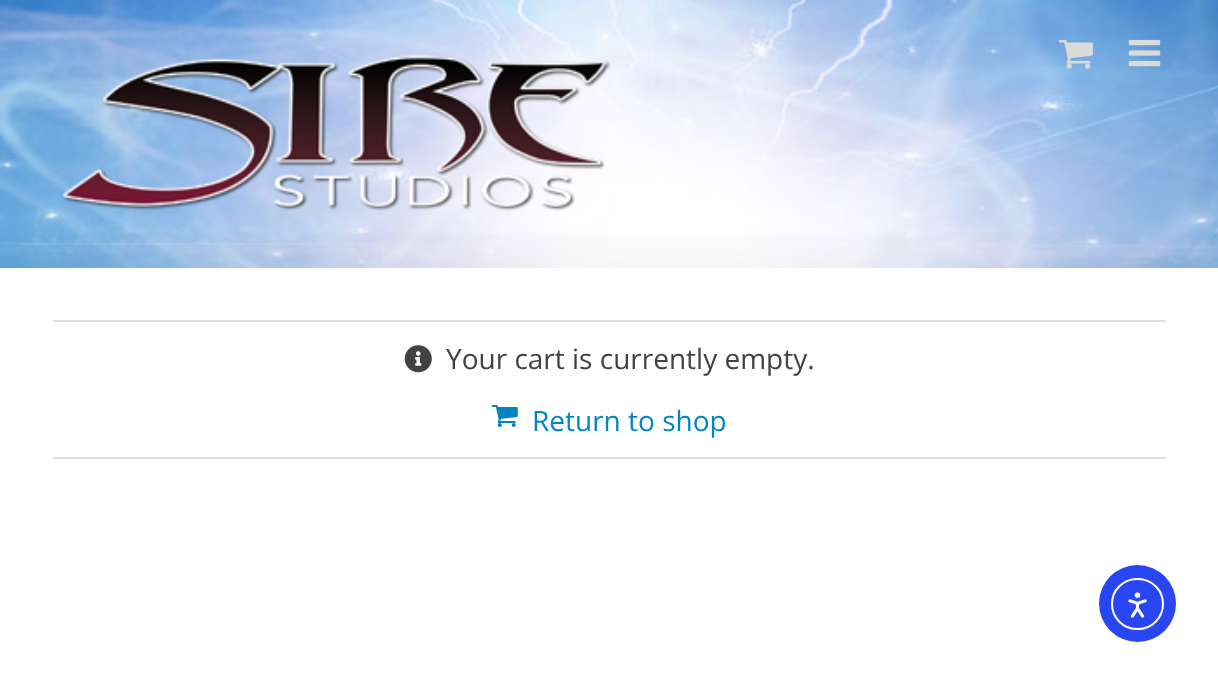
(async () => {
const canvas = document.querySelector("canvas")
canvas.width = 1218
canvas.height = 683
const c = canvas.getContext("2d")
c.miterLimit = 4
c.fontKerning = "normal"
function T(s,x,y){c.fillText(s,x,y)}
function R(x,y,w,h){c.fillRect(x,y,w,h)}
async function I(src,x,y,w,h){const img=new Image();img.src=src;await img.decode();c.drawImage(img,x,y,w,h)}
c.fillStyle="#fff"
R(0,0,1218,683)
await I("1.png",0,0,1218,268)
await I("2.png",62,54,549,157)
await I("3.png",1058,39,35,30)
await I("4.png",1128,39,33,28)
c.fillStyle="#e0dede"
R(53,320,1113,2)
await I("5.png",404,345,28,28)
c.font="28px Open Sans"
c.fillStyle="#424242"
T("Your cart is currently empty.",446,369)
c.fillStyle="#e0dede"
R(53,457,1113,2)
await I("6.png",491,405,27,22)
c.fillStyle="#0186bf"
T("Return to shop",532,431)
c.fillStyle="#2847f3"
c.beginPath()
c.arc(1137.5,603.5,38.5,0,7)
c.fill()
c.beginPath()
c.roundRect(1112,579,51,50,25)
c.strokeStyle="#fff"
c.lineWidth=2
c.stroke()
await I("7.png",1128,592,19,26)
})()
